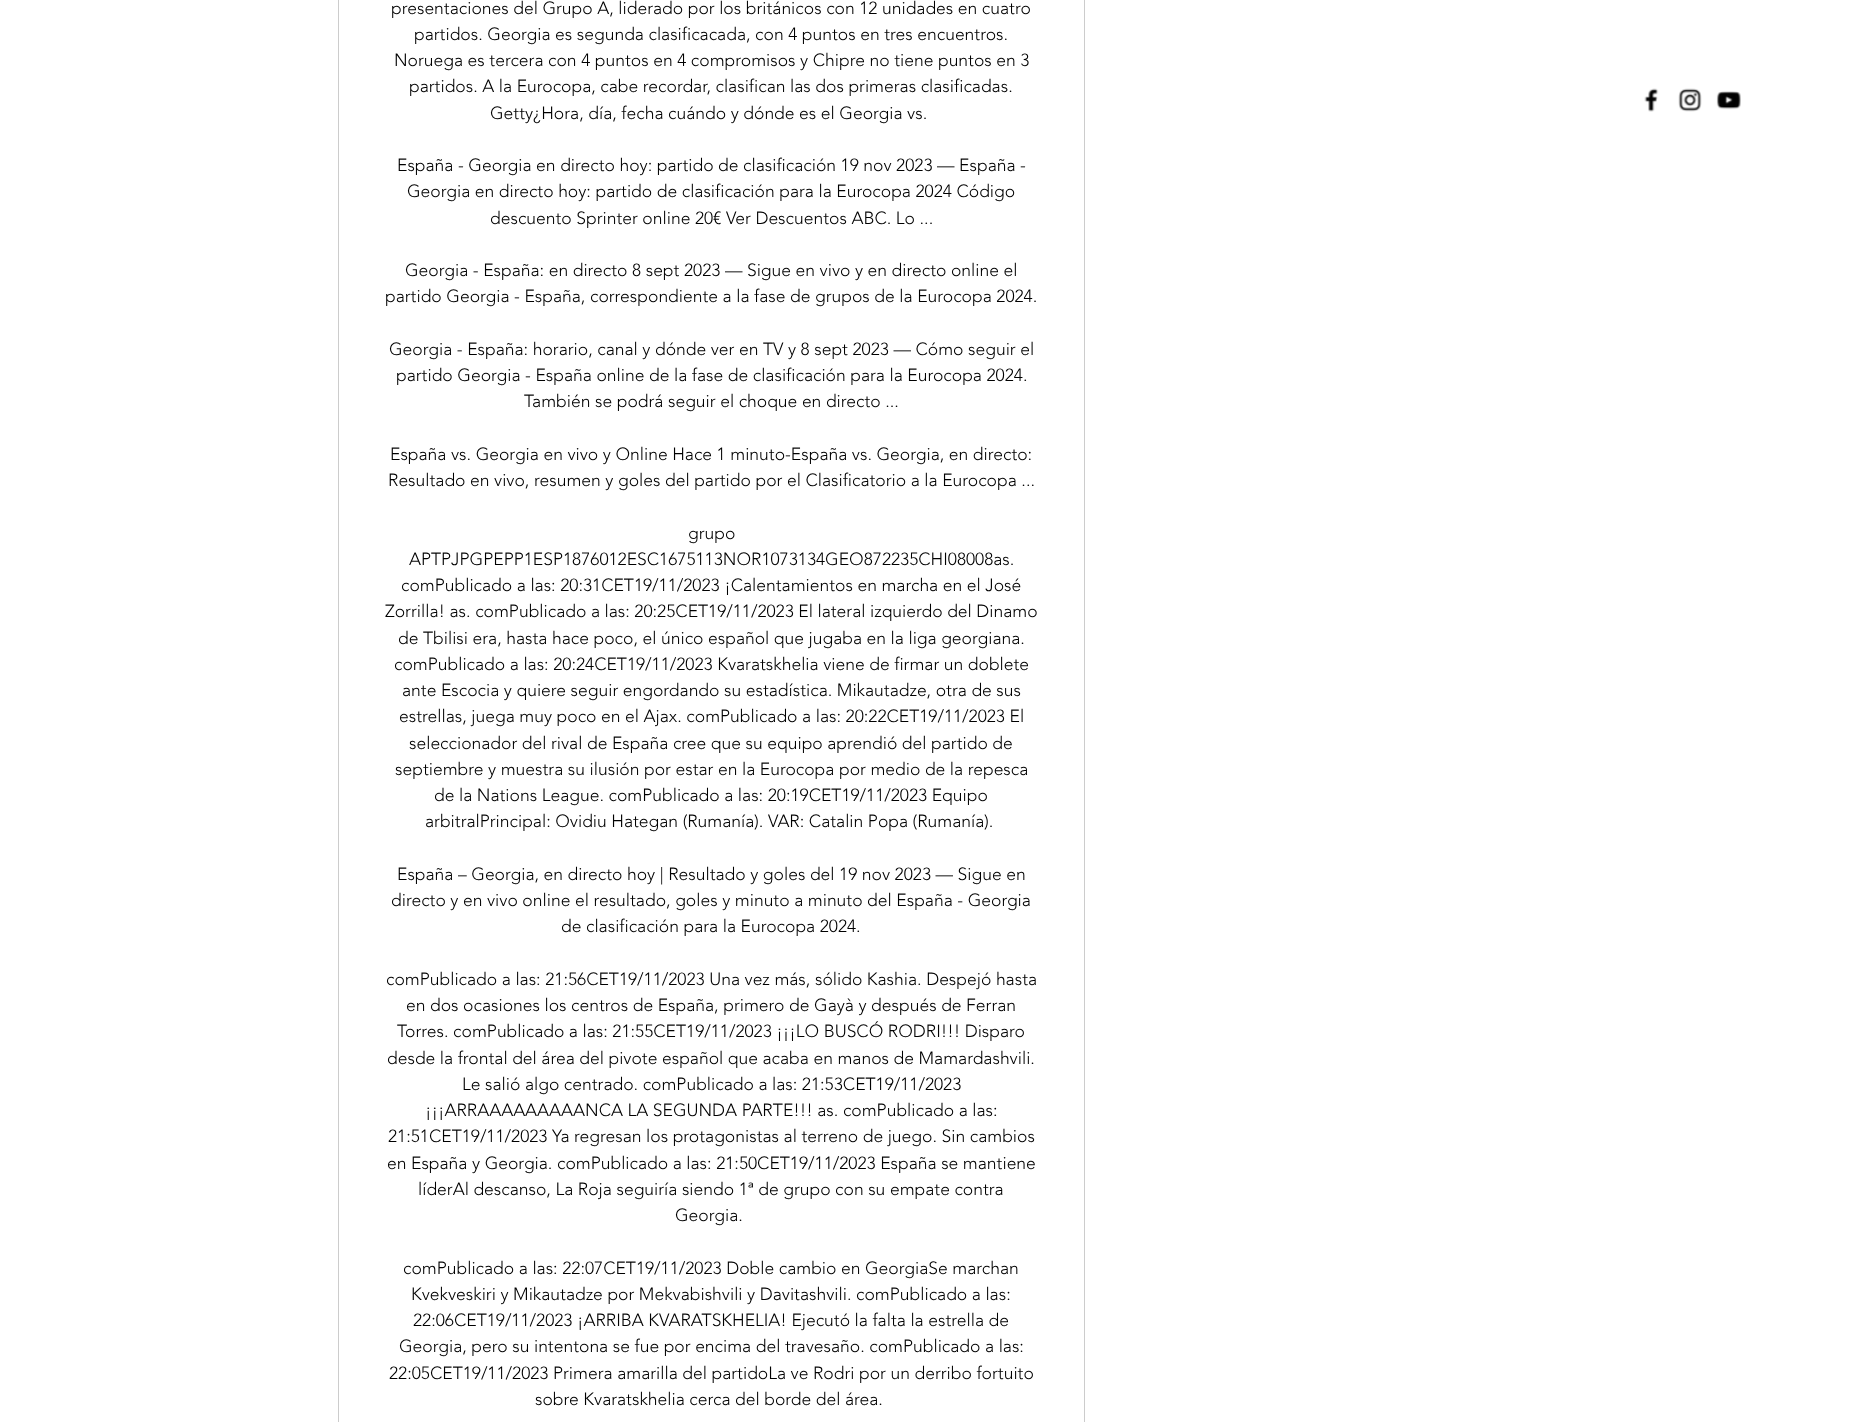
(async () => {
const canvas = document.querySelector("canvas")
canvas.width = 1850
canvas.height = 1422
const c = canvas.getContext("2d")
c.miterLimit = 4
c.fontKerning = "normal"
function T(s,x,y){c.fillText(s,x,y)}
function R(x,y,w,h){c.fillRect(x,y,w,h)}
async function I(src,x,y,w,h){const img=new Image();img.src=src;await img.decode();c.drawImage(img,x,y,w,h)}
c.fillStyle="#fff"
R(0,0,1850,1422)
c.strokeStyle="#ccc"
c.strokeRect(338.5,-.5,746,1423)
c.font="300 17.5px 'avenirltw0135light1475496'"
c.fillStyle="#000"
T("presentaciones del Grupo A, liderado por los británicos con 12 unidades en cuatro",391,14)
T("partidos. Georgia es segunda clasificacada, con 4 puntos en tres encuentros.",414,40)
T("Noruega es tercera con 4 puntos en 4 compromisos y Chipre no tiene puntos en 3",394,66)
T("partidos. A la Eurocopa, cabe recordar, clasifican las dos primeras clasificadas.",409,92)
T("Getty¿Hora, día, fecha cuándo y dónde es el Georgia vs.",490,119)
T("España - Georgia en directo hoy: partido de clasificación 19 nov 2023 — España -",397,171)
T("Georgia en directo hoy: partido de clasificación para la Eurocopa 2024 Código",407,197)
T("descuento Sprinter online 20€ Ver Descuentos ABC. Lo ...",490,224)
T("Georgia - España: en directo 8 sept 2023 — Sigue en vivo y en directo online el",405,276)
T("partido Georgia - España, correspondiente a la fase de grupos de la Eurocopa 2024.",385,302)
T("Georgia - España: horario, canal y dónde ver en TV y 8 sept 2023 — Cómo seguir el",389,355)
T("partido Georgia - España online de la fase de clasificación para la Eurocopa 2024.",396,381)
T("También se podrá seguir el choque en directo ...",524,407)
T("España vs. Georgia en vivo y Online Hace 1 minuto-España vs. Georgia, en directo:",390,460)
T("Resultado en vivo, resumen y goles del partido por el Clasificatorio a la Eurocopa ...",388,486)
T("grupo",688,539)
T("APTPJPGPEPP1ESP1876012ESC1675113NOR1073134GEO872235CHI08008as.",409,565)
T("comPublicado a las: 20:31CET19/11/2023 ¡Calentamientos en marcha en el José",401,591)
T("Zorrilla! as. comPublicado a las: 20:25CET19/11/2023 El lateral izquierdo del Dinamo",385,617)
T("de Tbilisi era, hasta hace poco, el único español que jugaba en la liga georgiana.",398,644)
T("comPublicado a las: 20:24CET19/11/2023 Kvaratskhelia viene de firmar un doblete",394,670)
T("ante Escocia y quiere seguir engordando su estadística. Mikautadze, otra de sus",402,696)
T("estrellas, juega muy poco en el Ajax. comPublicado a las: 20:22CET19/11/2023 El",399,722)
T("seleccionador del rival de España cree que su equipo aprendió del partido de",409,749)
T("septiembre y muestra su ilusión por estar en la Eurocopa por medio de la repesca",395,775)
T("de la Nations League. comPublicado a las: 20:19CET19/11/2023 Equipo",434,801)
T("arbitralPrincipal: Ovidiu Hategan (Rumanía). VAR: Catalin Popa (Rumanía).",425,827)
T("España – Georgia, en directo hoy | Resultado y goles del 19 nov 2023 — Sigue en",397,880)
T("directo y en vivo online el resultado, goles y minuto a minuto del España - Georgia",391,906)
T("de clasificación para la Eurocopa 2024.",561,932)
T("comPublicado a las: 21:56CET19/11/2023 Una vez más, sólido Kashia. Despejó hasta",386,985)
T("en dos ocasiones los centros de España, primero de Gayà y después de Ferran",406,1011)
T("Torres. comPublicado a las: 21:55CET19/11/2023 ¡¡¡LO BUSCÓ RODRI!!! Disparo",397,1037)
T("desde la frontal del área del pivote español que acaba en manos de Mamardashvili.",387,1064)
T("Le salió algo centrado. comPublicado a las: 21:53CET19/11/2023",462,1090)
T("¡¡¡ARRAAAAAAAAANCA LA SEGUNDA PARTE!!! as. comPublicado a las:",425,1116)
T("21:51CET19/11/2023 Ya regresan los protagonistas al terreno de juego. Sin cambios",388,1142)
T("en España y Georgia. comPublicado a las: 21:50CET19/11/2023 España se mantiene",387,1169)
T("líderAl descanso, La Roja seguiría siendo 1ª de grupo con su empate contra",418,1195)
T("Georgia.",675,1221)
T("comPublicado a las: 22:07CET19/11/2023 Doble cambio en GeorgiaSe marchan",403,1274)
T("Kvekveskiri y Mikautadze por Mekvabishvili y Davitashvili. comPublicado a las:",411,1300)
T("22:06CET19/11/2023 ¡ARRIBA KVARATSKHELIA! Ejecutó la falta la estrella de",413,1326)
T("Georgia, pero su intentona se fue por encima del travesaño. comPublicado a las:",399,1352)
T("22:05CET19/11/2023 Primera amarilla del partidoLa ve Rodri por un derribo fortuito",389,1379)
T("sobre Kvaratskhelia cerca del borde del área.",535,1405)
await I("1.png",1644,88,15,24)
await I("2.png",1678,88,24,24)
await I("3.png",1716,91,25,19)
})()
